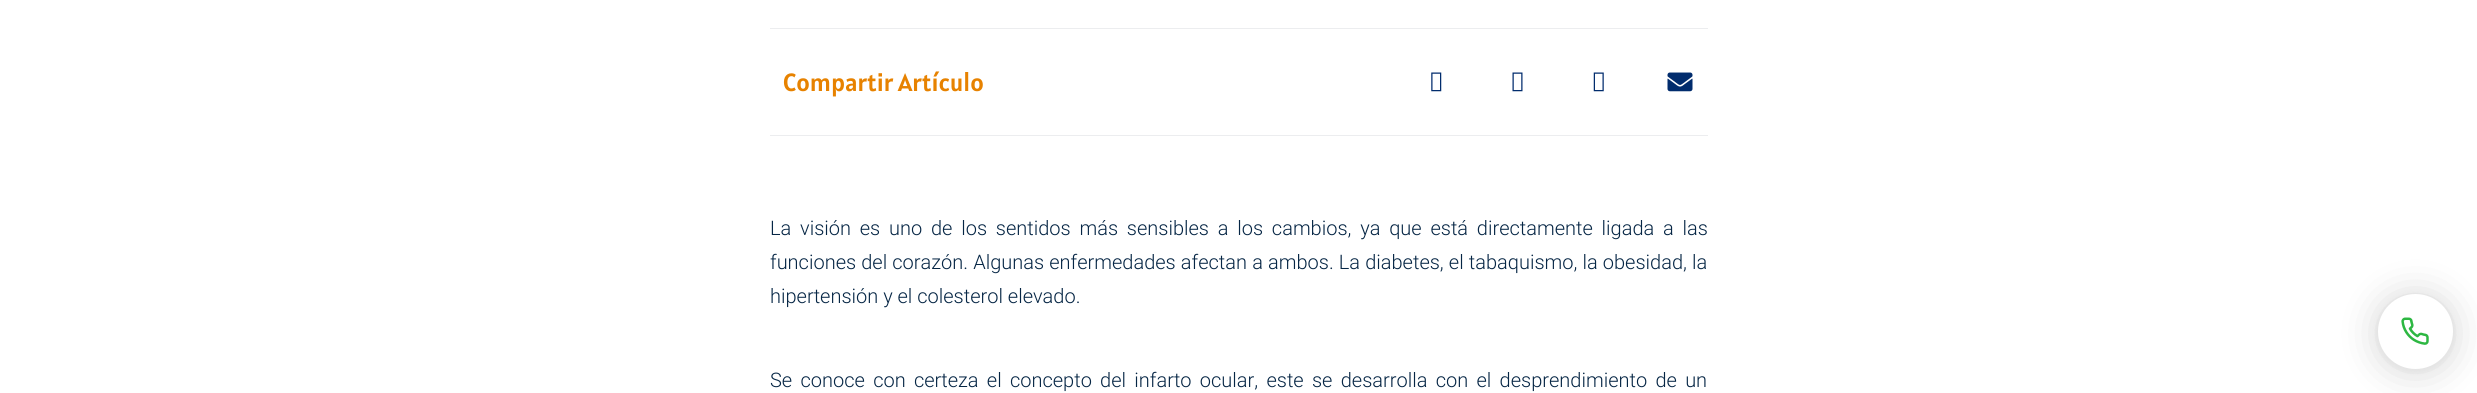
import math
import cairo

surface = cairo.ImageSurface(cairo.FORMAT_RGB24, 2477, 393)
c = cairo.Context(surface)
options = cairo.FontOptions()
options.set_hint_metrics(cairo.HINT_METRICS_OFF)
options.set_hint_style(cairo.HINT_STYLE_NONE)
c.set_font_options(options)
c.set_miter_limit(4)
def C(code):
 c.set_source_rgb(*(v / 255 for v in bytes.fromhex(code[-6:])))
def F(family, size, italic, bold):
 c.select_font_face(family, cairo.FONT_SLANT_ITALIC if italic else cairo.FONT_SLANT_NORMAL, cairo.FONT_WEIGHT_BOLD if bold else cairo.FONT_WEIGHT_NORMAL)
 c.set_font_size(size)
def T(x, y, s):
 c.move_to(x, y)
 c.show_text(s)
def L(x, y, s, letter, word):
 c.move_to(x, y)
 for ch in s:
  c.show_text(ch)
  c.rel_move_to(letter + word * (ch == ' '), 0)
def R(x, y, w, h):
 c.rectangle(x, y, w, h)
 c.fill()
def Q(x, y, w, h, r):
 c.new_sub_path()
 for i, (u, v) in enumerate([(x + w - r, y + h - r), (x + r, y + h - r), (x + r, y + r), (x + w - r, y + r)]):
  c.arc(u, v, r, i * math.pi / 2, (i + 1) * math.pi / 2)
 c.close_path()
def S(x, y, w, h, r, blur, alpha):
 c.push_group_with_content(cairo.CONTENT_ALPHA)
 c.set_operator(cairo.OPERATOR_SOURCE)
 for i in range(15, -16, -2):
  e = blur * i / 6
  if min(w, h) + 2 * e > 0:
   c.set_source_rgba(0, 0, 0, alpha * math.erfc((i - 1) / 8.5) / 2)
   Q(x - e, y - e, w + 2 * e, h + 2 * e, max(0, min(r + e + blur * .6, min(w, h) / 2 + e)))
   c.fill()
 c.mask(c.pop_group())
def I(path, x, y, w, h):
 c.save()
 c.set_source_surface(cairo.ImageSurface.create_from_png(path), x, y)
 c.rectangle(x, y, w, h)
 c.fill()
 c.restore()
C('ffffff')
c.paint()
C('ecedef')
R(770,28,938,1)
R(770,135,938,1)
F('Alatsi',25,0,0)
C('e78200')
T(783,91,'Compartir Artículo')
I('1.png',1431,72,11,20)
I('2.png',1512,72,11,20)
I('3.png',1593,72,11,20)
I('4.png',1667,72,26,20)
F('Roboto Light',20,0,0)
C('062645')
L(770,235,'La visión es uno de los sentidos más sensibles a los cambios, ya que está directamente ligada a las',0,3.9)
L(770,269,'funciones del corazón. Algunas enfermedades afectan a ambos. La diabetes, el tabaquismo, la obesidad, la',0,.25)
T(770,303,'hipertensión y el colesterol elevado.')
L(770,387,'Se conoce con certeza el concepto del infarto ocular, este se desarrolla con el desprendimiento de un',0,3.4)
C('000000')
S(2378,296,75,75,37.5,20,.16)
S(2378,295,75,75,37.5,4,.06)
C('ffffff')
c.arc(2415.5,331.5,37.5,0,2 * math.pi)
c.fill()
I('5.png',2401,317,28,28)
surface.write_to_png('o.png')
